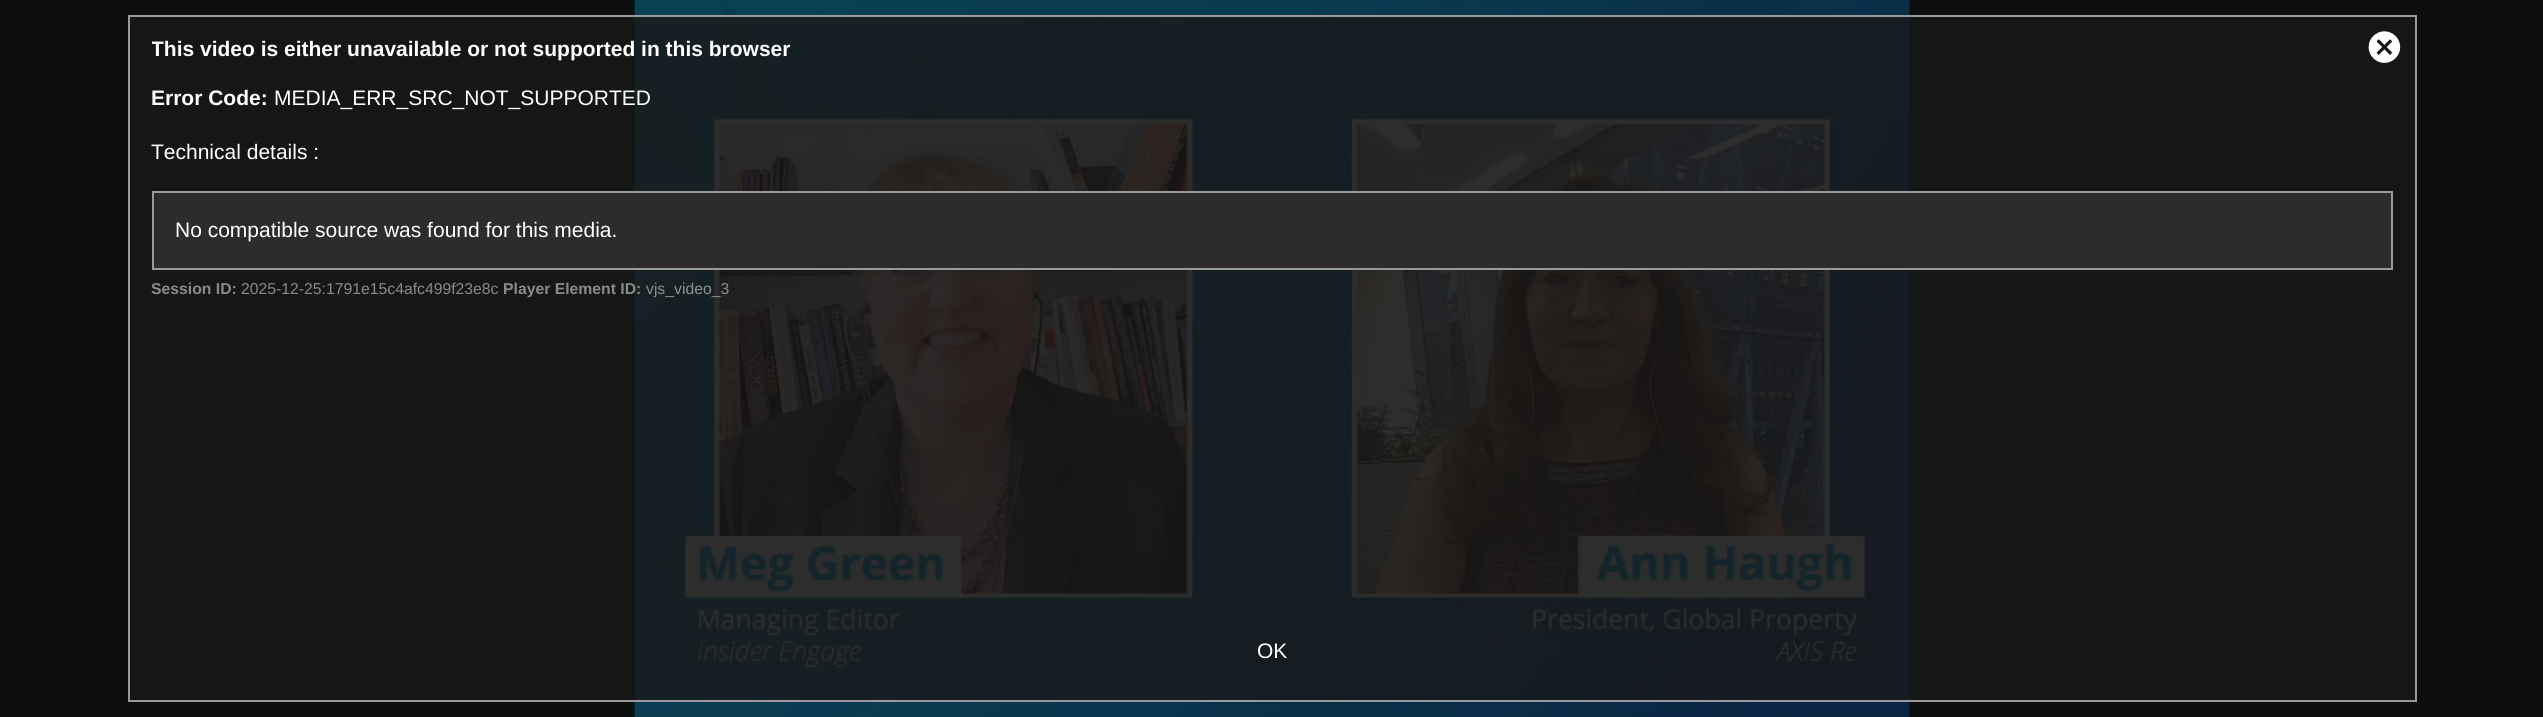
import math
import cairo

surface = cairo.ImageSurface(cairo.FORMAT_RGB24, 2543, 717)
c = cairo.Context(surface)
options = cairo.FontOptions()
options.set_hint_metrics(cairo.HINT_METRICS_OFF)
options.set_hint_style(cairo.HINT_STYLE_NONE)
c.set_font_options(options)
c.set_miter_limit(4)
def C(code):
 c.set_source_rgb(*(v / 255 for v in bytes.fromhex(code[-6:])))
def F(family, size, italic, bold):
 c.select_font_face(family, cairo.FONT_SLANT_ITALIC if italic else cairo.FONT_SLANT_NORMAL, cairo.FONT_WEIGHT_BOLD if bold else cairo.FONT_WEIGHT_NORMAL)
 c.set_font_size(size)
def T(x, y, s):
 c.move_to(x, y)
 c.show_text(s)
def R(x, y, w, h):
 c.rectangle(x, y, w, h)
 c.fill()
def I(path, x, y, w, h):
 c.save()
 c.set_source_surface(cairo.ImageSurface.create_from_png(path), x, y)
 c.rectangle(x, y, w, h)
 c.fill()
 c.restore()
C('0b0e0c')
c.paint()
C('151616')
R(130,17,2285,683)
I('1.png',634,0,1276,717)
c.rectangle(129,16,2287,685)
C('999999')
c.stroke()
c.save()
c.rectangle(152,17,2241,592)
c.clip()
F('Liberation Sans',21,0,1)
C('ffffff')
T(151,56,'This video is either unavailable or not supported in this browser')
c.restore()
F('Liberation Sans',21,0,1)
C('ffffff')
T(151,105,'Error Code:')
F('Liberation Sans',21,0,0)
T(274,105,'MEDIA_ERR_SRC_NOT_SUPPORTED')
T(151,159,'Technical details :')
C('2c2c2c')
c.rectangle(153,192,2239,77)
c.fill_preserve()
C('999999')
c.stroke()
C('ffffff')
T(175,237,'No compatible source was found for this media.')
F('Liberation Sans',15.75,0,1)
C('8a8a8a')
T(151,294,'Session ID:')
F('Liberation Sans',15.75,0,0)
T(241,294,'2025-12-25:1791e15c4afc499f23e8c')
F('Liberation Sans',15.75,0,1)
T(503,294,'Player Element ID:')
F('Liberation Sans',15.75,0,0)
C('8b9091')
T(646,294,'vjs_video_3')
I('2.png',2368,31,33,32)
F('Liberation Sans',21,0,0)
C('ffffff')
T(1257,658,'OK')
surface.write_to_png('o.png')
